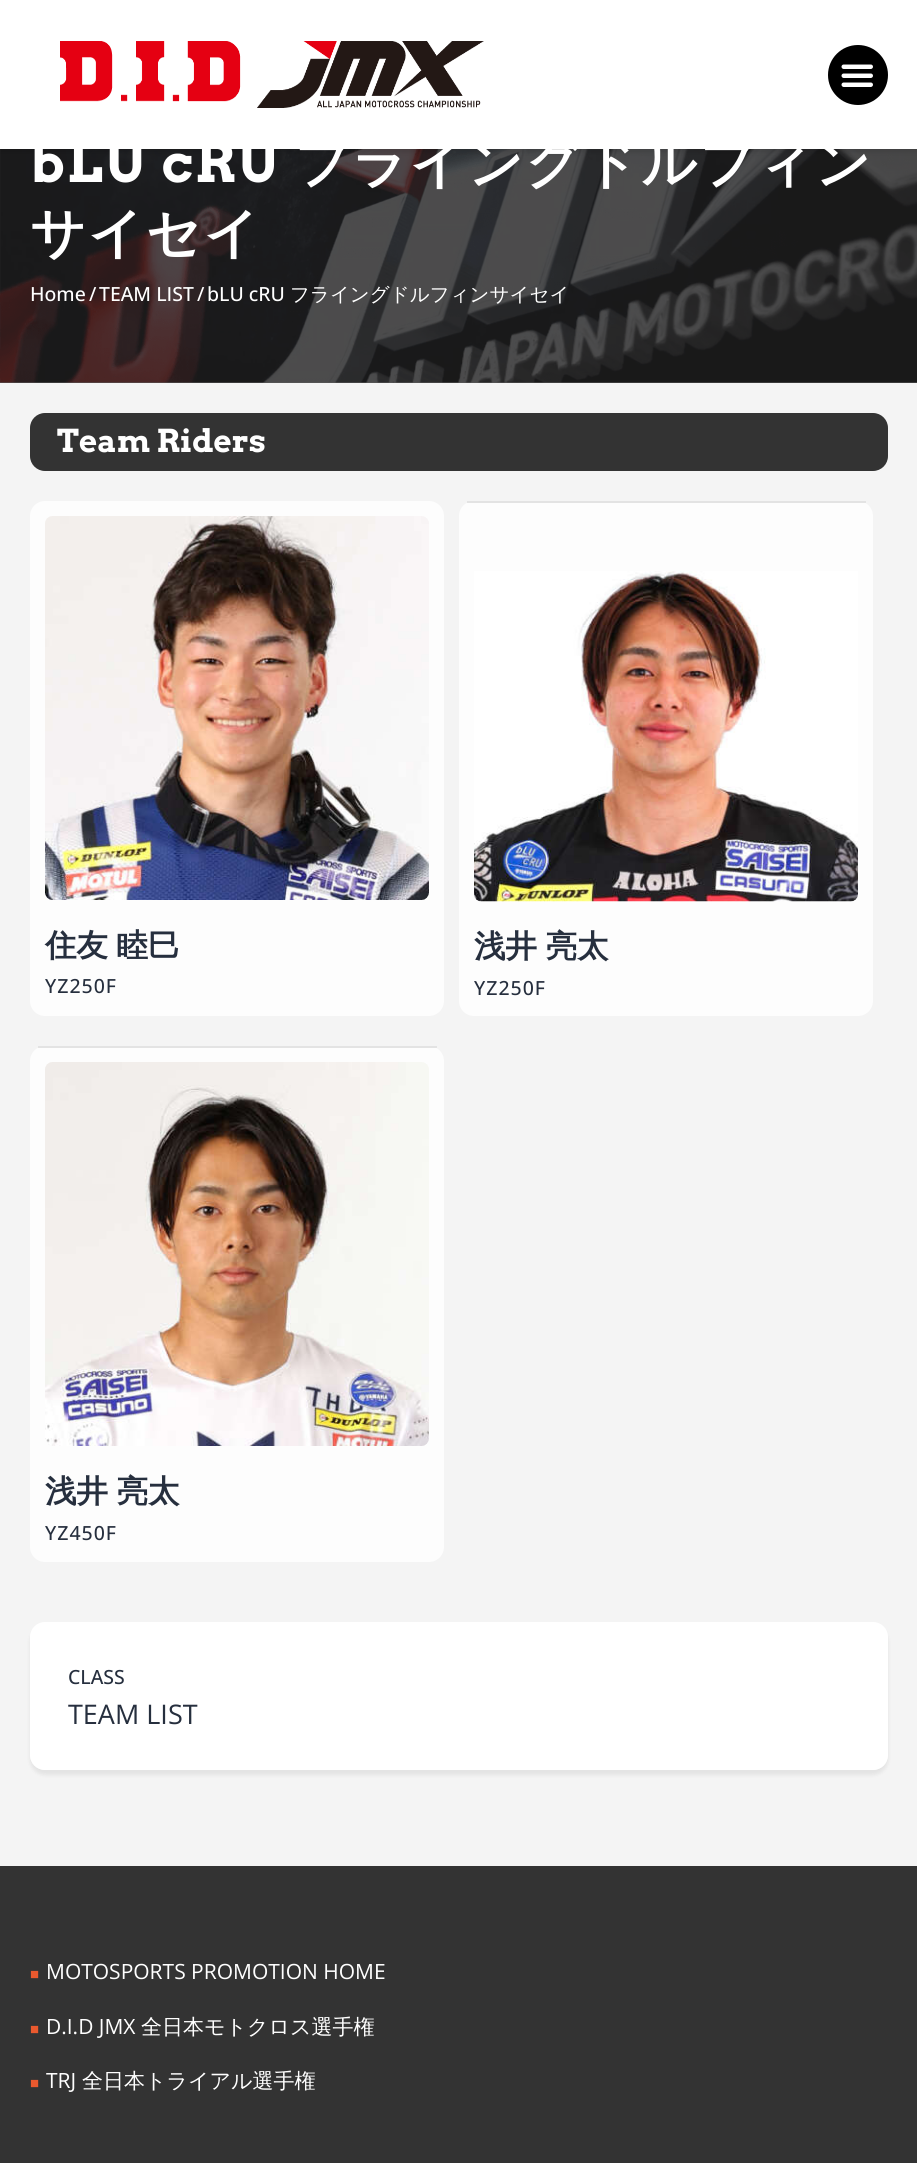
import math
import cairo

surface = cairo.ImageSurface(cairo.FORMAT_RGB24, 917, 2163)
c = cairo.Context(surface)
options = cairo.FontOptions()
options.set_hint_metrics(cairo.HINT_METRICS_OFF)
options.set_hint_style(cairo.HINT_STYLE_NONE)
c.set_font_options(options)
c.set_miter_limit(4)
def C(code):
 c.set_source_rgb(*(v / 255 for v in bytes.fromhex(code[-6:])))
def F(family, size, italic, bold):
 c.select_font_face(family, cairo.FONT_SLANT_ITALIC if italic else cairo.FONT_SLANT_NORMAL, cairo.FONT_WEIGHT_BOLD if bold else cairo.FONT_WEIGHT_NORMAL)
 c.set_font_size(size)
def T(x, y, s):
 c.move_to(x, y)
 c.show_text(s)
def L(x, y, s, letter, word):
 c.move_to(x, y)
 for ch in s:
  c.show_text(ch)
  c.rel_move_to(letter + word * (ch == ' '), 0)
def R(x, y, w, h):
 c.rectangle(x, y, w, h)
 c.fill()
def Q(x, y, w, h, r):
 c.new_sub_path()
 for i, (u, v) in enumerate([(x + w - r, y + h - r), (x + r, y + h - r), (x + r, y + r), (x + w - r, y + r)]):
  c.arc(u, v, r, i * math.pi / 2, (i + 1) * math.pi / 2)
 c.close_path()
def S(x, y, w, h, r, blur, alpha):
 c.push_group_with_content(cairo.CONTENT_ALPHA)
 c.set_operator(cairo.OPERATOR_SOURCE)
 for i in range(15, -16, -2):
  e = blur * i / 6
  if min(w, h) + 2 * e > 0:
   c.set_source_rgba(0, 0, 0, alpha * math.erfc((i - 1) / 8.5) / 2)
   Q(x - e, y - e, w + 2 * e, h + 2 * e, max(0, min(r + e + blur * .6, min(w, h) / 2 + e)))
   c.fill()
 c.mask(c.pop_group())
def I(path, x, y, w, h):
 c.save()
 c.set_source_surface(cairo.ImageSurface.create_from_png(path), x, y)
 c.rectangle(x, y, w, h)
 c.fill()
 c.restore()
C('f4f4f4')
c.paint()
C('5c5c5c')
R(0,149,917,234)
I('1.png',0,149,917,234)
C('000000')
S(0,5,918,148,0,2,.08)
C('ffffff')
R(0,0,917,149)
I('2.png',60,41,424,67)
C('000000')
c.arc(858,75,30,0,2 * math.pi)
c.fill()
I('3.png',841,64,32,23)
F('Arvo',54.6,0,1)
C('ffffff')
L(30,182,'bLU cRU',2,0)
F('WenQuanYi Zen Hei',54.6,0,1)
L(294,182,'フライングドルフィン',2,0)
L(30,252,'サイセイ',2,0)
F('Open Sans Medium',19.5,0,0)
T(30,301,'Home')
T(89,301,'/')
T(99,301,'TEAM LIST')
T(197,301,'/')
T(207,301,'bLU cRU')
F('WenQuanYi Zen Hei Medium',19.5,0,0)
T(290,301,'フライングドルフィンサイセイ')
C('333333')
Q(30,413,858,58,15)
c.fill()
F('Arvo',31.5,0,1)
C('ffffff')
T(57,452,'Team Riders')
C('fdfdfd')
Q(30,501,414,515,15)
c.fill()
I('4.png',45,516,384,384)
F('WenQuanYi Zen Hei',31.5,0,1)
C('262f3e')
L(45,956,'住友 睦巳',0,-1)
F('Open Sans Medium',19.5,0,0)
L(45,993,'YZ250F',1,0)
C('fdfdfd')
Q(459,501,414,515,15)
c.fill()
C('e3e3e3')
R(467,501,399,2)
I('5.png',474,571,384,331)
F('WenQuanYi Zen Hei',31.5,0,1)
C('262f3e')
L(474,957,'浅井 亮太',0,-1)
F('Open Sans Medium',19.5,0,0)
L(474,995,'YZ250F',1,0)
C('fdfdfd')
Q(30,1046,414,516,15)
c.fill()
C('e3e3e3')
R(38,1046,399,2)
I('6.png',45,1062,384,384)
F('WenQuanYi Zen Hei',31.5,0,1)
C('262f3e')
L(45,1502,'浅井 亮太',0,-1)
F('Open Sans Medium',19.5,0,0)
L(45,1540,'YZ450F',1,0)
c.save()
c.set_fill_rule(cairo.FILL_RULE_EVEN_ODD)
c.new_path()
c.move_to(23,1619)
c.line_to(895,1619)
c.line_to(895,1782)
c.line_to(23,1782)
c.close_path()
c.move_to(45,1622)
c.line_to(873,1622)
c.curve_to(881.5,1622,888,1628.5,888,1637)
c.line_to(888,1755)
c.curve_to(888,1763.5,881.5,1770,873,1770)
c.line_to(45,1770)
c.curve_to(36.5,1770,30,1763.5,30,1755)
c.line_to(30,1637)
c.curve_to(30,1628.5,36.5,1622,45,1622)
c.close_path()
c.clip()
C('000000')
S(30,1626,858,149,15,2,.07)
c.restore()
C('ffffff')
Q(30,1622,858,148,15)
c.fill()
C('262f3e')
T(68,1684,'CLASS')
F('Open Sans',27,0,0)
T(68,1724,'TEAM LIST')
C('333333')
R(0,1866,917,297)
F('Liberation Sans',15,0,0)
C('ea592e')
T(30,1979,'■')
F('Open Sans',21,0,0)
C('ffffff')
T(46,1979,'MOTOSPORTS PROMOTION HOME')
F('Liberation Sans',15,0,0)
C('ea592e')
T(30,2034,'■')
F('Open Sans',21,0,0)
C('ffffff')
T(46,2034,'D.I.D JMX')
F('WenQuanYi Zen Hei Medium',21,0,0)
T(141,2034,'全日本モトクロス選手権')
F('Liberation Sans',15,0,0)
C('ea592e')
T(30,2088,'■')
F('Open Sans',21,0,0)
C('ffffff')
T(46,2088,'TRJ')
F('WenQuanYi Zen Hei Medium',21,0,0)
T(82,2088,'全日本トライアル選手権')
surface.write_to_png('o.png')
